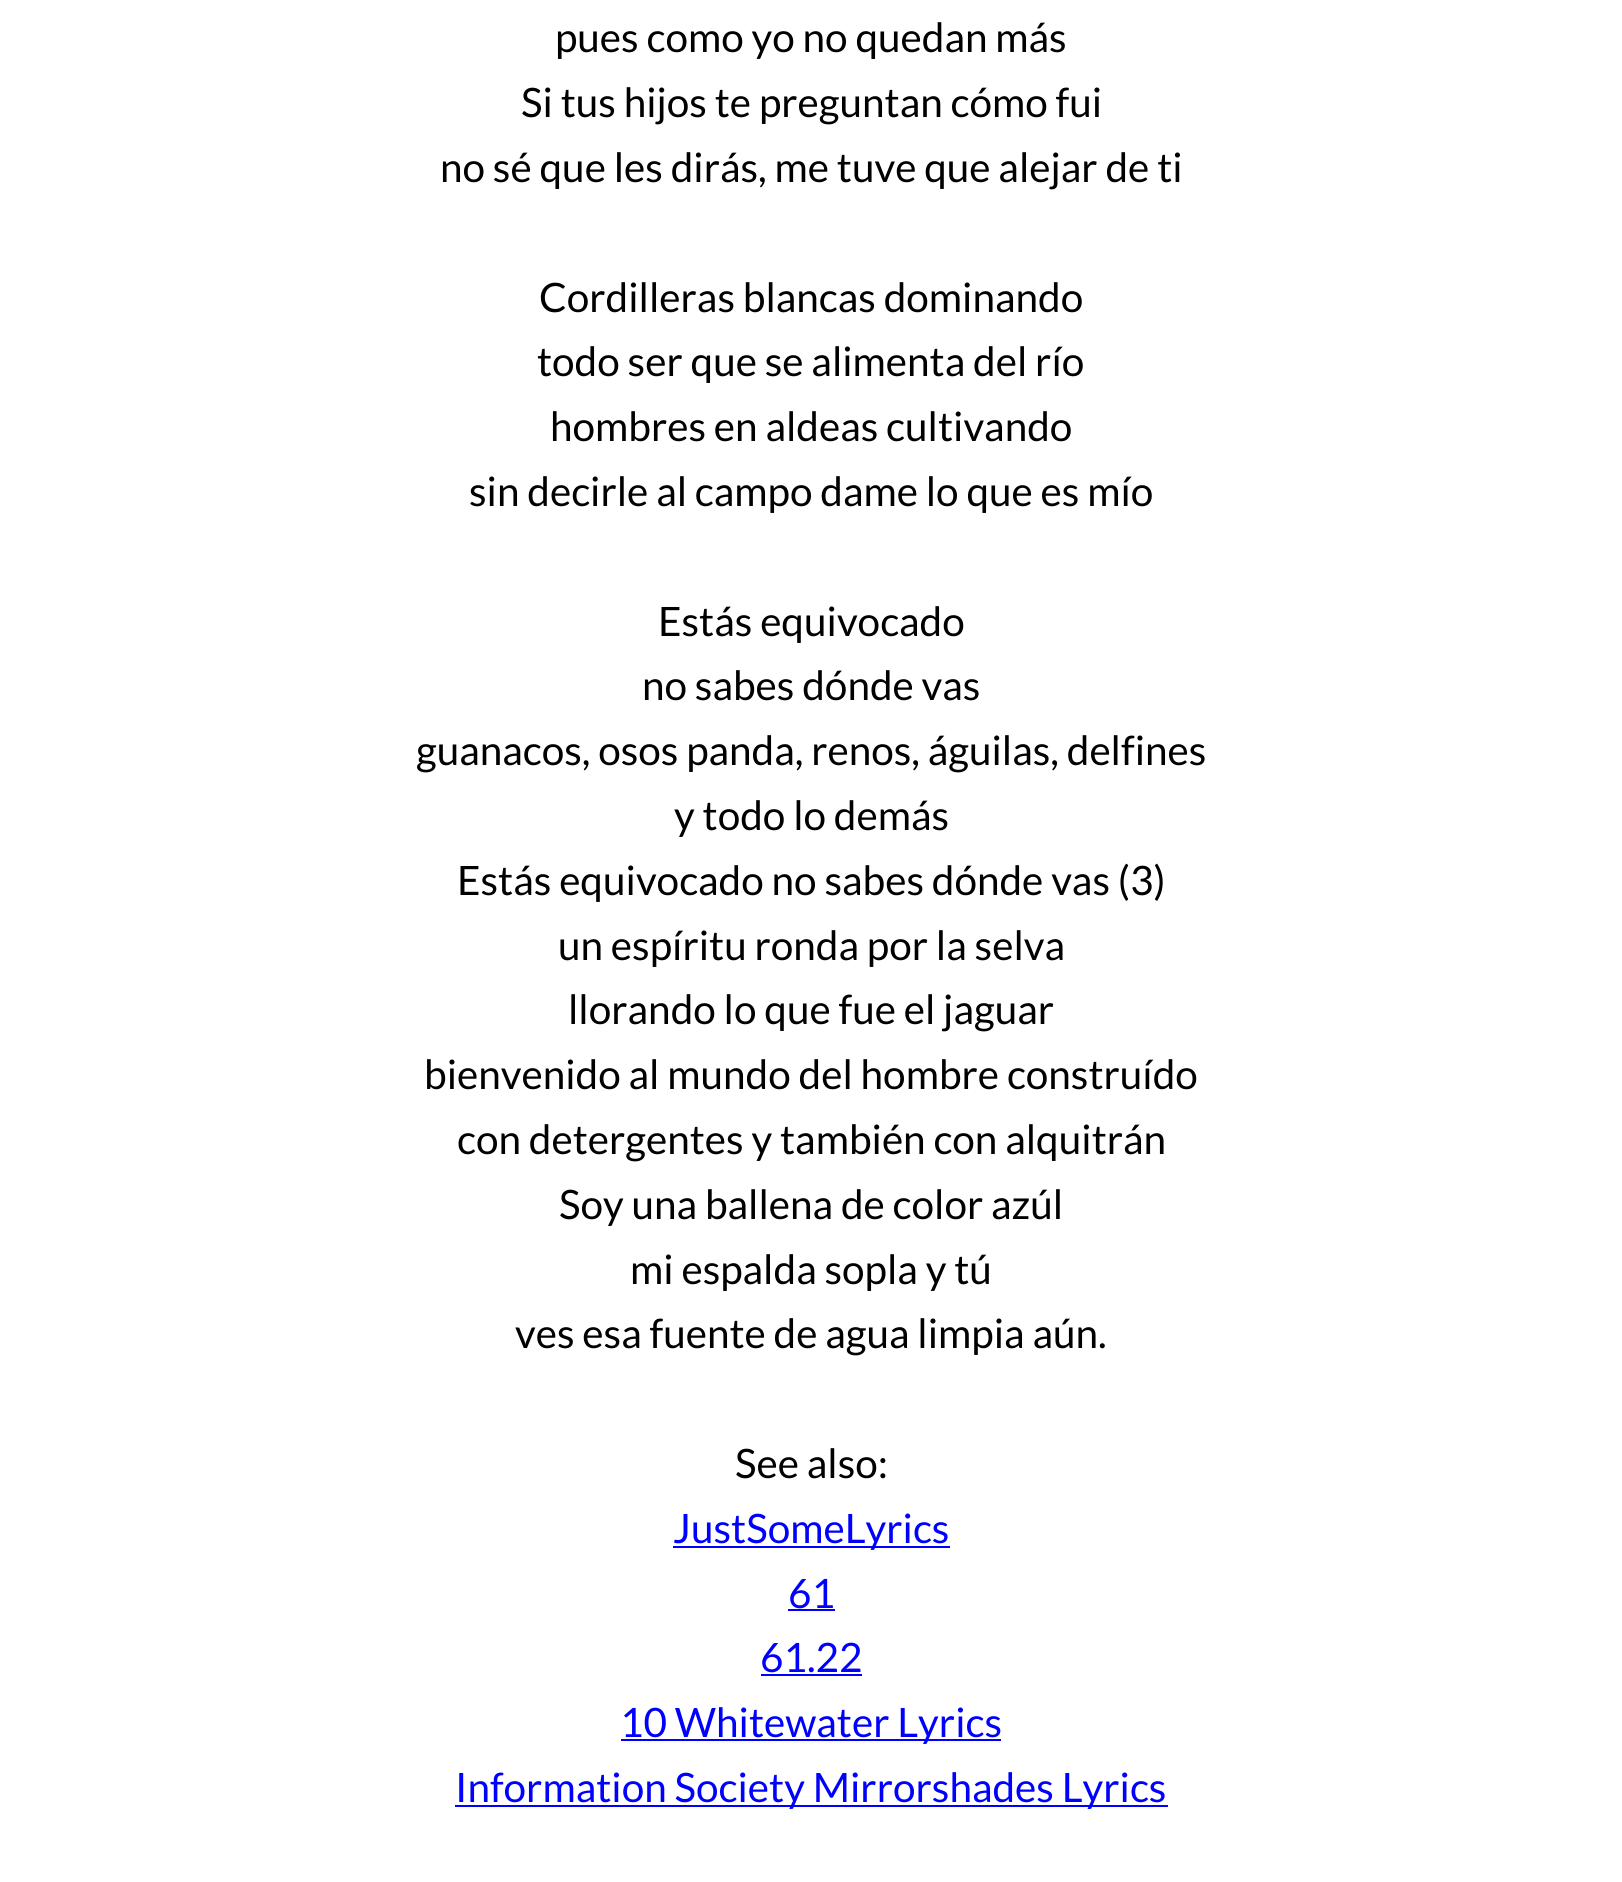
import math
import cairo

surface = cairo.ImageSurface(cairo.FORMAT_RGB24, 1622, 1882)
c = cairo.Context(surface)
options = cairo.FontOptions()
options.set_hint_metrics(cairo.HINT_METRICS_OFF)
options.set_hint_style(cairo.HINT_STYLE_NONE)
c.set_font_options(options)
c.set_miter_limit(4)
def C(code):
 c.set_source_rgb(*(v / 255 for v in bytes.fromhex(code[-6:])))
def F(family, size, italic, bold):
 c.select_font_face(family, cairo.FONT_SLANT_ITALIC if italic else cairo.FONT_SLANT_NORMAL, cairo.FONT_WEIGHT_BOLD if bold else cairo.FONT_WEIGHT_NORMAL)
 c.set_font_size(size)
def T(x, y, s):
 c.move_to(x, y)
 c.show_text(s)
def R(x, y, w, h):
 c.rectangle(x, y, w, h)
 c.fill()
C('ffffff')
c.paint()
F('Lato',40.5,0,0)
C('000000')
T(555,52,'pues como yo no quedan más')
T(521,117,'Si tus hijos te preguntan cómo fui')
T(440,182,'no sé que les dirás, me tuve que alejar de ti')
T(539,312,'Cordilleras blancas dominando')
T(537,376,'todo ser que se alimenta del río')
T(550,441,'hombres en aldeas cultivando')
T(469,506,'sin decirle al campo dame lo que es mío')
T(658,636,'Estás equivocado')
T(642,700,'no sabes dónde vas')
T(416,765,'guanacos, osos panda, renos, águilas, delfines')
T(674,830,'y todo lo demás')
T(457,895,'Estás equivocado no sabes dónde vas (3)')
T(558,960,'un espíritu ronda por la selva')
T(568,1024,'llorando lo que fue el jaguar')
T(424,1089,'bienvenido al mundo del hombre construído')
T(457,1154,'con detergentes y también con alquitrán')
T(559,1219,'Soy una ballena de color azúl')
T(630,1284,'mi espalda sopla y tú')
T(515,1348,'ves esa fuente de agua limpia aún.')
T(735,1478,'See also:')
C('0000ff')
R(673,1546,277,2)
T(673,1543,'JustSomeLyrics')
T(788,1608,'61')
R(788,1609,47,2)
T(760,1672,'61.22')
R(761,1674,101,2)
R(621,1739,380,2)
T(620,1737,'10 Whitewater Lyrics')
R(455,1805,713,2)
T(455,1802,'Information Society Mirrorshades Lyrics')
surface.write_to_png('o.png')
